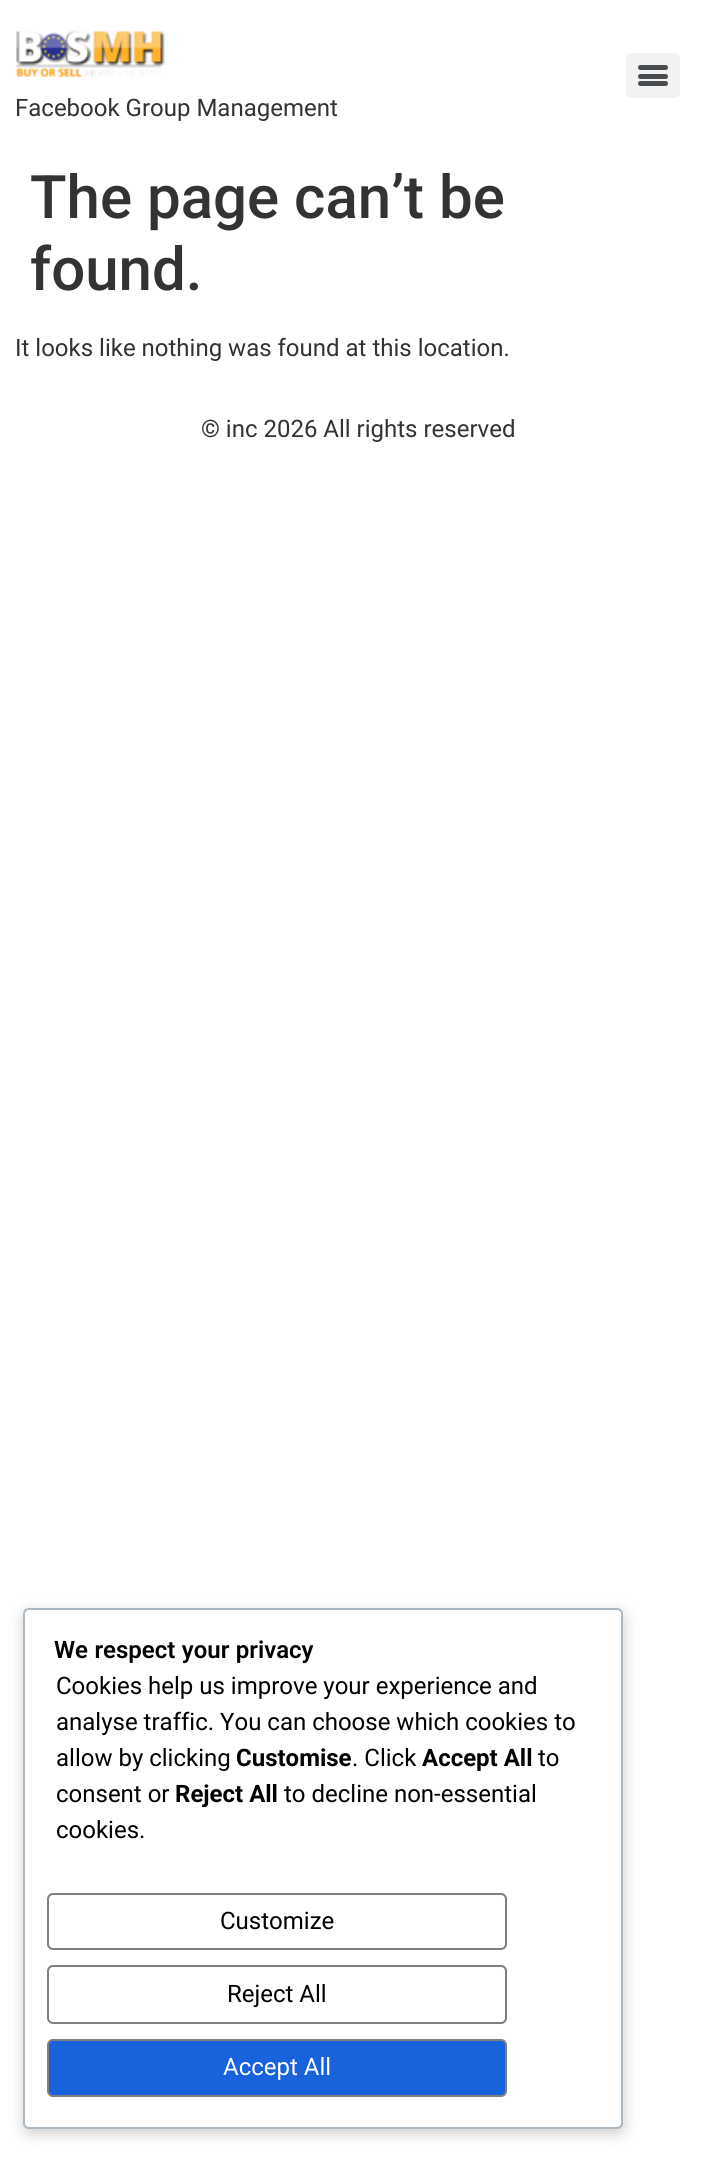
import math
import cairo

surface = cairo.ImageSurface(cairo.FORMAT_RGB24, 717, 2180)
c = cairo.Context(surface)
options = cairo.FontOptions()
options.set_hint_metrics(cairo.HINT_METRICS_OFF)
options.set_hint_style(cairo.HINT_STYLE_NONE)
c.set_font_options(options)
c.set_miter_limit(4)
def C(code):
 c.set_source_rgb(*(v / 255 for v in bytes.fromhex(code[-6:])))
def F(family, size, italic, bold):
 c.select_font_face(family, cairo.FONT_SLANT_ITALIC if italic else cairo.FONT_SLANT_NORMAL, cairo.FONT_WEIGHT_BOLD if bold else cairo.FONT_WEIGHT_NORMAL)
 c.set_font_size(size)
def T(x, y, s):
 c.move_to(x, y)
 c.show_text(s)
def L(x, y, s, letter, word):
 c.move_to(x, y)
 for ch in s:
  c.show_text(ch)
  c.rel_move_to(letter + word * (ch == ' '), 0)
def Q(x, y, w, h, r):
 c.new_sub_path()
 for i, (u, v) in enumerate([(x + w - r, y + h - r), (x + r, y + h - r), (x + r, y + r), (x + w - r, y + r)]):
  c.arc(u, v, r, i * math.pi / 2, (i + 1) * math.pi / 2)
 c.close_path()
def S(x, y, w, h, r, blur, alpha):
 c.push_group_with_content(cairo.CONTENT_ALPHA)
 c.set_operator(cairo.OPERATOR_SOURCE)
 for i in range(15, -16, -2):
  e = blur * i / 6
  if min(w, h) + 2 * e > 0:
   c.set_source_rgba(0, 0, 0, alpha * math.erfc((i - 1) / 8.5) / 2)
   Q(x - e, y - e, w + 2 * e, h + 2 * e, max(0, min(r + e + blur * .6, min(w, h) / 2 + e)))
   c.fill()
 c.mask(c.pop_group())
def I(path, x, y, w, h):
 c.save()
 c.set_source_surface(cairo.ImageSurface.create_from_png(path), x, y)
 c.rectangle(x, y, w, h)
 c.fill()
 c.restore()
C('ffffff')
c.paint()
C('f2f2f2')
Q(626,53,54,45,5)
c.fill()
C('494c4f')
Q(638,74,30,5,2.5)
c.fill()
Q(638,65,30,5,2.5)
c.fill()
Q(638,81,30,5,2.5)
c.fill()
I('1.png',16,30,149,48)
F('Roboto',24,0,0)
C('333333')
T(15,116,'Facebook Group Management')
F('Roboto Medium',60,0,0)
T(30,218,'The page can’t be')
T(30,290,'found.')
F('Roboto',24,0,0)
T(15,356,'It looks like nothing was found at this location.')
T(201,437,'© inc 2026 All rights reserved')
C('000000')
S(24,1613,600,520,6,7.5,.2)
C('ffffff')
Q(24,1609,598,519,5)
c.fill_preserve()
C('abb8c3')
c.stroke()
F('Roboto SemiBold',24,0,0)
C('000000')
L(54,1658,'We respect your privacy',0,.5)
F('Roboto',24,0,0)
T(56,1694,'Cookies help us improve your experience and')
T(56,1730,'analyse traffic. You can choose which cookies to')
T(56,1766,'allow by clicking')
F('Roboto',24,0,1)
T(236,1766,'Customise')
F('Roboto',24,0,0)
T(352,1766,'. Click')
F('Roboto',24,0,1)
T(422,1766,'Accept All')
F('Roboto',24,0,0)
T(538,1766,'to')
T(56,1802,'consent or')
F('Roboto',24,0,1)
T(175,1802,'Reject All')
F('Roboto',24,0,0)
T(284,1802,'to decline non-essential')
T(56,1838,'cookies.')
Q(48,1894,458,55,5)
C('808080')
c.stroke()
C('000000')
T(220,1929,'Customize')
Q(48,1966,458,57,5)
C('808080')
c.stroke()
C('000000')
T(227,2002,'Reject All')
C('1863dc')
Q(48,2040,458,56,5)
c.fill_preserve()
C('808080')
c.stroke()
C('ffffff')
T(223,2075,'Accept All')
surface.write_to_png('o.png')
